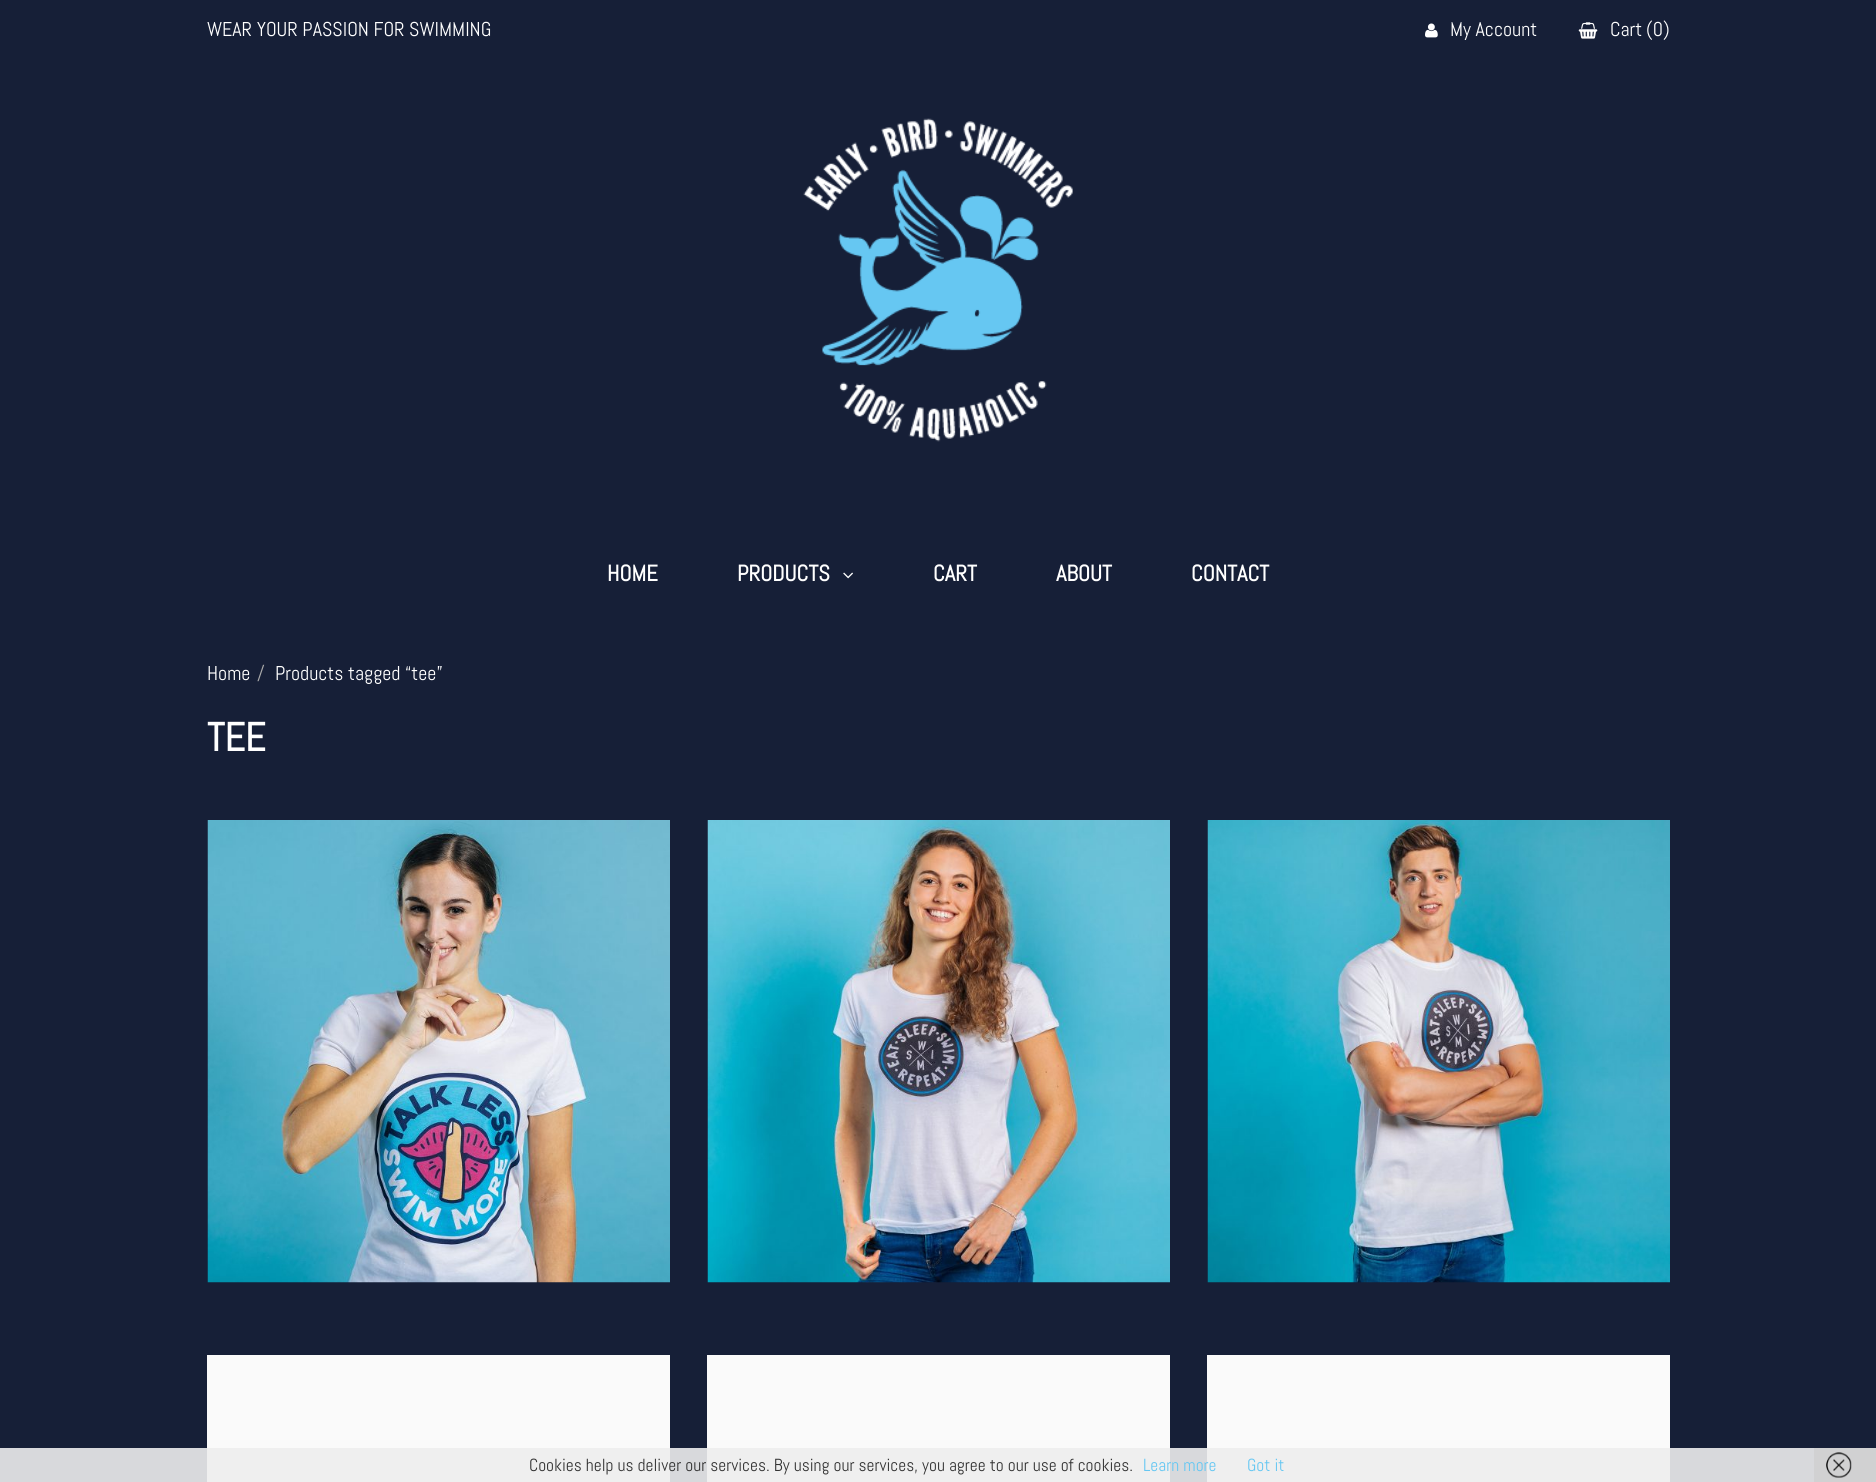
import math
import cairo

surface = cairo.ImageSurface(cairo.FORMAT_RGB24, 1876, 1482)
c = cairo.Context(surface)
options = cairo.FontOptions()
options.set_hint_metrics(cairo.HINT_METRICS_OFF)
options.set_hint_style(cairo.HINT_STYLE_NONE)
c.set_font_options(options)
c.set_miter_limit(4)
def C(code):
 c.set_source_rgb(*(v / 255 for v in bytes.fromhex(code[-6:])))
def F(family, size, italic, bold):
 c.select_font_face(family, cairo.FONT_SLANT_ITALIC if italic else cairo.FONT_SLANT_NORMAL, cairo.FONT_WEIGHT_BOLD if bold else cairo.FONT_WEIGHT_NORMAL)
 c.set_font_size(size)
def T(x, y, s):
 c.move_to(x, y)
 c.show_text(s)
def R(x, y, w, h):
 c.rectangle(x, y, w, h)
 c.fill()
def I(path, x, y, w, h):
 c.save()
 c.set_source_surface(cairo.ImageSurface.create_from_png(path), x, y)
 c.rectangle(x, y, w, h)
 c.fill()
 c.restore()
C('161f37')
c.paint()
C('d8d9dc')
R(0,1448,1814,34)
F('Abel',20,0,0)
C('ffffff')
T(207,36,'WEAR YOUR PASSION FOR SWIMMING')
I('1.png',1425,23,13,15)
T(1450,36,'My Account')
I('2.png',1578,22,20,17)
T(1610,36,'Cart')
T(1646,36,'(0)')
I('3.png',803,118,270,324)
F('Abel',22.5,0,1)
T(607,581,'HOME')
T(737,581,'PRODUCTS')
I('4.png',843,572,10,7)
T(933,581,'CART')
T(1056,581,'ABOUT')
T(1191,581,'CONTACT')
F('Abel',20,0,0)
T(207,680,'Home')
C('aaaaaa')
T(257,680,'/')
C('ffffff')
T(275,680,'Products tagged “tee”')
F('Abel',40,0,1)
T(207,751,'TEE')
I('5.png',207,820,463,463)
I('6.png',707,820,463,463)
I('7.png',1207,820,463,463)
C('fafafa')
R(207,1355,463,93)
C('efefef')
R(207,1448,463,34)
C('fafafa')
R(707,1355,463,93)
C('efefef')
R(707,1448,463,34)
C('fafafa')
R(1207,1355,463,93)
C('efefef')
R(1207,1448,463,34)
F('Abel',17.5,0,0)
C('333333')
T(529,1471,'Cookies help us deliver our services. By using our services, you agree to our use of cookies.')
C('66c7f2')
T(1143,1471,'Learn more')
T(1247,1471,'Got it')
C('d1d1d2')
R(1814,1448,62,34)
I('8.png',1826,1452,26,26)
surface.write_to_png('o.png')
